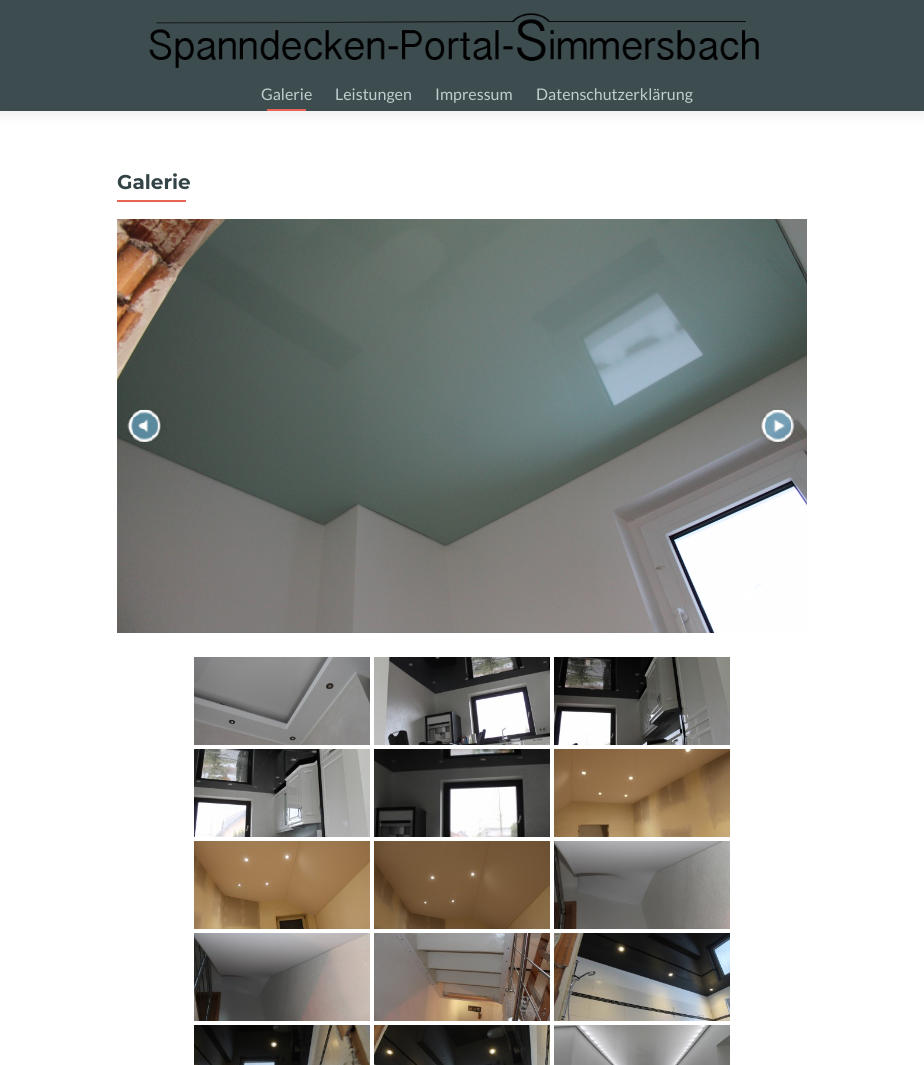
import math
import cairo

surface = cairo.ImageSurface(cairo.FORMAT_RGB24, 924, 1065)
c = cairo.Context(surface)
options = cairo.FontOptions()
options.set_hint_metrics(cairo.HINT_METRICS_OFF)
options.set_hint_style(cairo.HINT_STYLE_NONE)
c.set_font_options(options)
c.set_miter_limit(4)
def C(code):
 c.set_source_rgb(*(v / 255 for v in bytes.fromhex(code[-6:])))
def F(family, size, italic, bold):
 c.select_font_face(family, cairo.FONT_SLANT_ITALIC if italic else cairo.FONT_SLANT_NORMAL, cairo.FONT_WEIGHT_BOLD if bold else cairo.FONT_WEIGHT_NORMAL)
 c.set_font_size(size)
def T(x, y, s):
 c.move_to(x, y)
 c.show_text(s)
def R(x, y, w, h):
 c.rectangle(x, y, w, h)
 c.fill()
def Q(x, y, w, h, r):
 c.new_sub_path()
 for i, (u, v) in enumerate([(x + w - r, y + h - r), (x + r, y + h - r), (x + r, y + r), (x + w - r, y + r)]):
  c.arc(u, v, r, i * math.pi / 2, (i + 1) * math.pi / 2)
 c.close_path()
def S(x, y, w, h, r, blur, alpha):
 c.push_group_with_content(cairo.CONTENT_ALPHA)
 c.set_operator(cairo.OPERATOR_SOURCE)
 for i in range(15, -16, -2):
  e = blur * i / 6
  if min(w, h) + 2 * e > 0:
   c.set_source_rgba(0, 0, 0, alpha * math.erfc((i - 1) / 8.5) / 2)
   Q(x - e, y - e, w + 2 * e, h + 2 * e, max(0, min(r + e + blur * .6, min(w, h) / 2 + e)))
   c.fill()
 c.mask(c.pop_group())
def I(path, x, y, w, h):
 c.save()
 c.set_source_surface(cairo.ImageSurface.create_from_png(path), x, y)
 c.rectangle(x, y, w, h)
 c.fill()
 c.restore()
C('ffffff')
c.paint()
C('323232')
S(0,5,924,111,0,5.5,.08)
C('3d4c4f')
R(0,0,924,111)
I('1.png',149,13,610,55)
F('Lato',16,0,0)
C('c0cdcf')
T(261,100,'Galerie')
C('e96656')
R(267,109,39,2)
C('c0cdcf')
T(335,100,'Leistungen')
T(435,100,'Impressum')
T(536,100,'Datenschutzerklärung')
F('Montserrat Thin',20,0,0)
C('334346')
T(117,189,'Galerie')
C('e96656')
R(117,200,69,2)
I('2.png',117,219,690,414)
I('3.png',127,409,40,34)
I('4.png',760,408,36,35)
I('5.png',194,657,176,88)
I('6.png',374,657,176,88)
I('7.png',554,657,176,88)
I('8.png',194,749,176,88)
I('9.png',374,749,176,88)
I('10.png',554,749,176,88)
I('11.png',194,841,176,88)
I('12.png',374,841,176,88)
I('13.png',554,841,176,88)
I('14.png',194,933,176,88)
I('15.png',374,933,176,88)
I('16.png',554,933,176,88)
I('17.png',194,1025,176,40)
I('18.png',374,1025,176,40)
I('19.png',554,1025,176,40)
surface.write_to_png('o.png')
